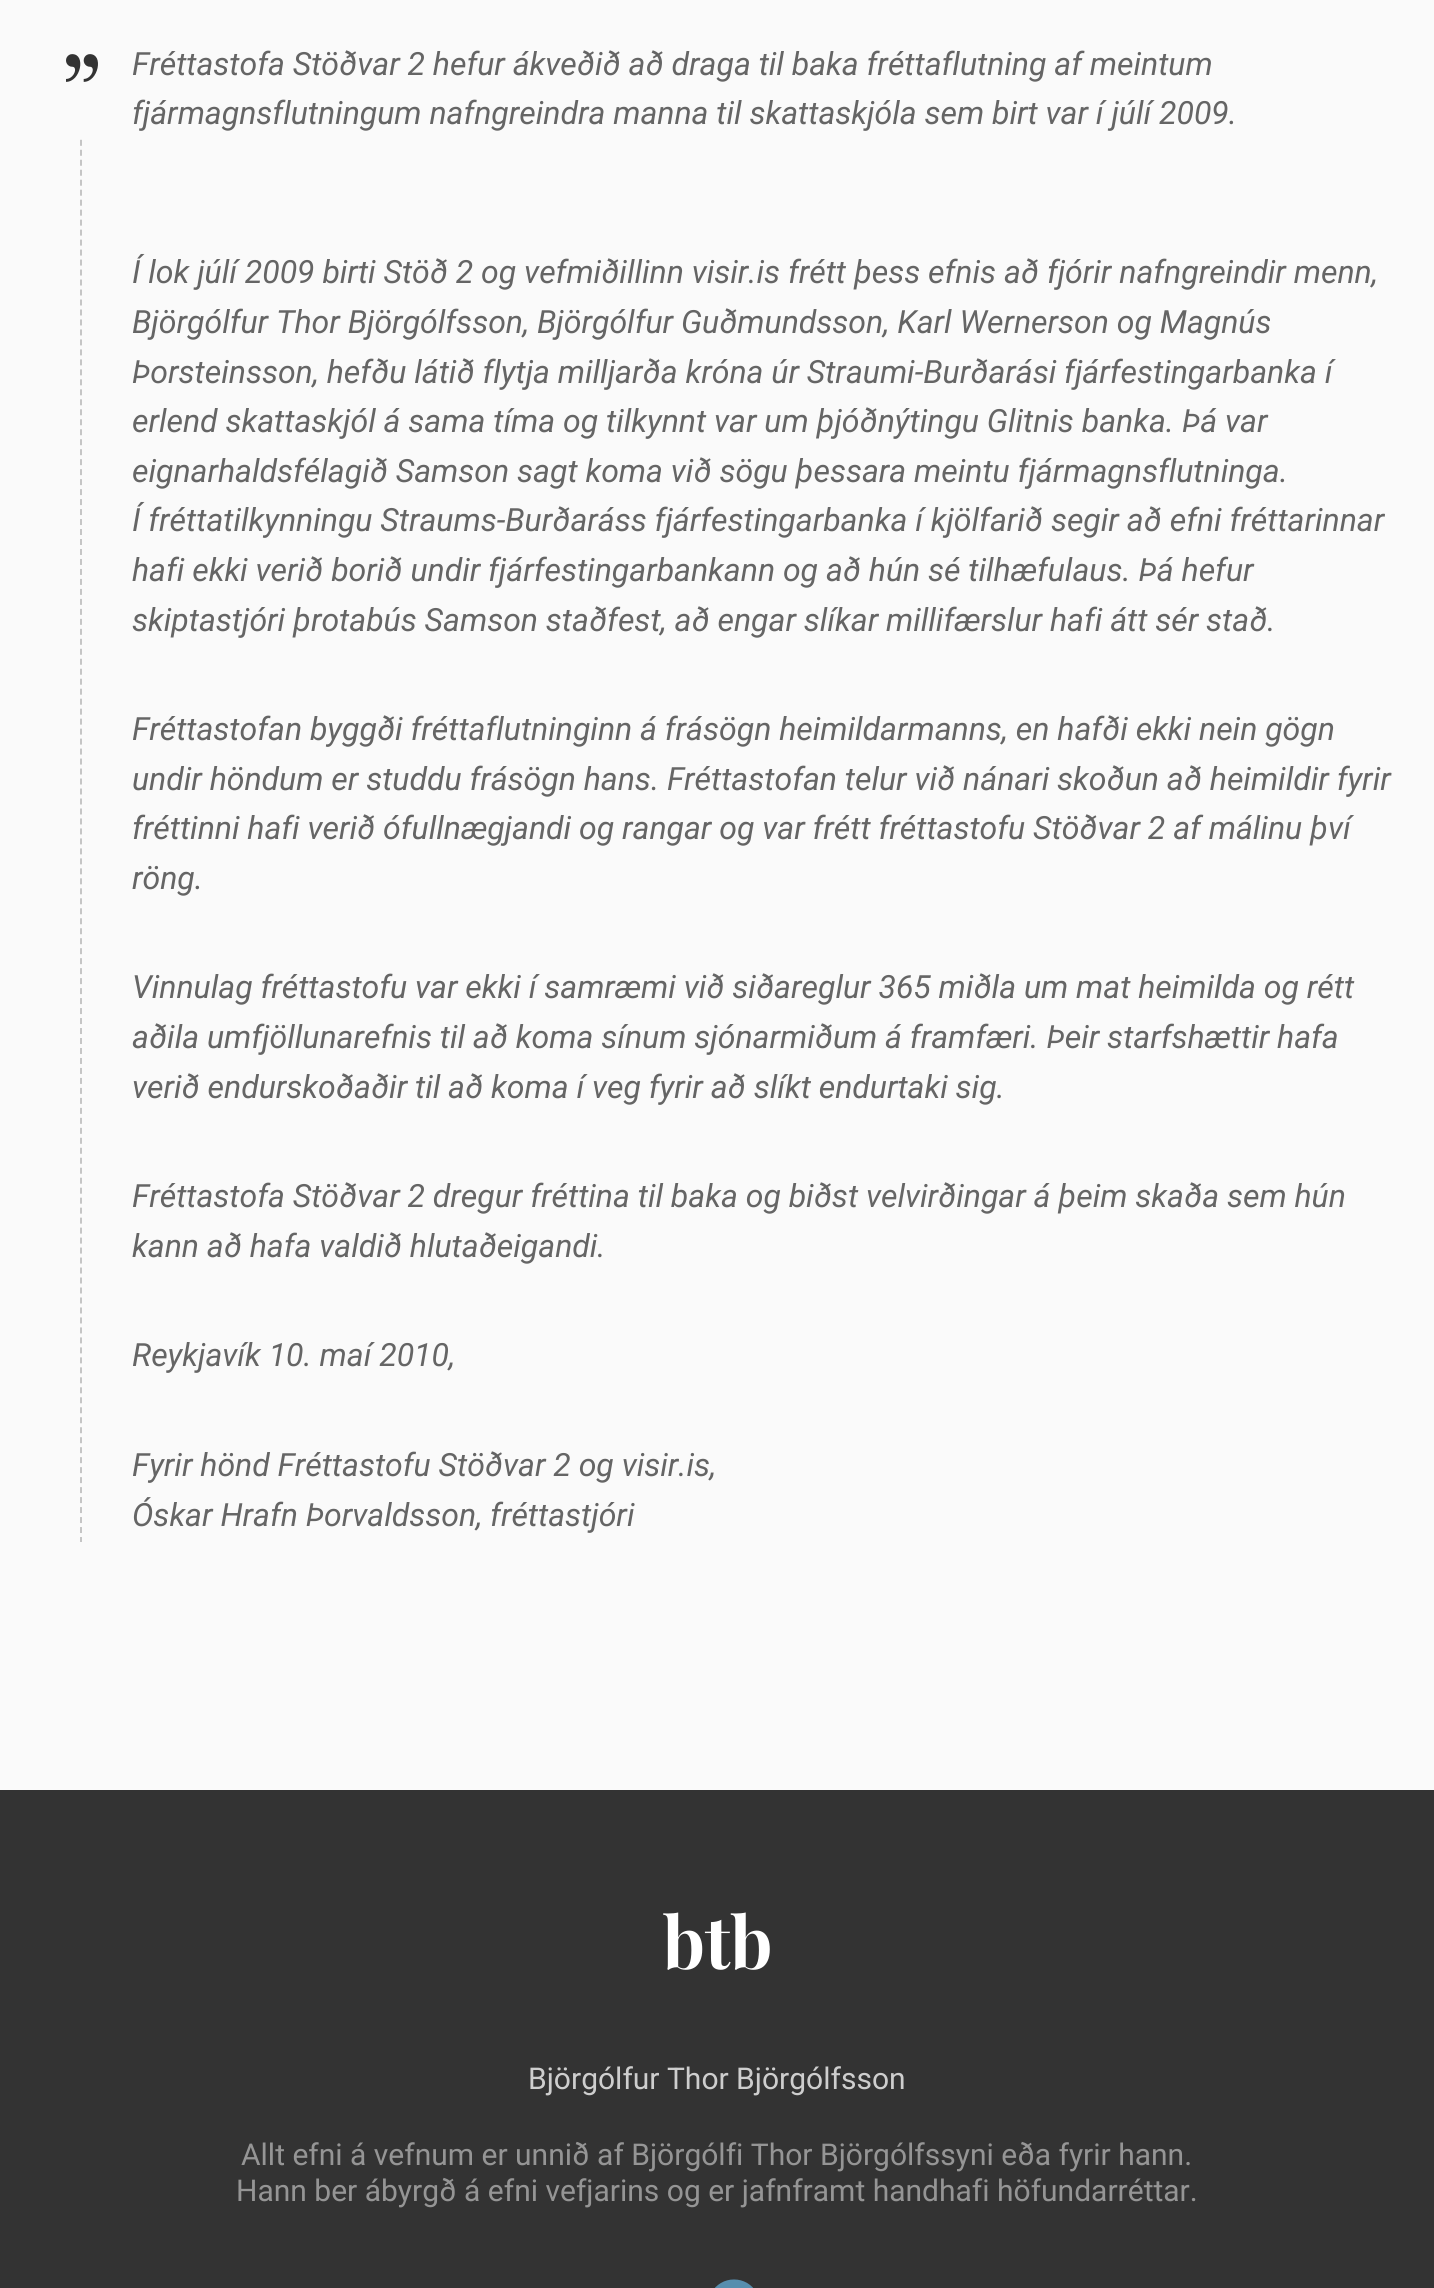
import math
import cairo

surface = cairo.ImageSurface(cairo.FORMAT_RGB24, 1434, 2288)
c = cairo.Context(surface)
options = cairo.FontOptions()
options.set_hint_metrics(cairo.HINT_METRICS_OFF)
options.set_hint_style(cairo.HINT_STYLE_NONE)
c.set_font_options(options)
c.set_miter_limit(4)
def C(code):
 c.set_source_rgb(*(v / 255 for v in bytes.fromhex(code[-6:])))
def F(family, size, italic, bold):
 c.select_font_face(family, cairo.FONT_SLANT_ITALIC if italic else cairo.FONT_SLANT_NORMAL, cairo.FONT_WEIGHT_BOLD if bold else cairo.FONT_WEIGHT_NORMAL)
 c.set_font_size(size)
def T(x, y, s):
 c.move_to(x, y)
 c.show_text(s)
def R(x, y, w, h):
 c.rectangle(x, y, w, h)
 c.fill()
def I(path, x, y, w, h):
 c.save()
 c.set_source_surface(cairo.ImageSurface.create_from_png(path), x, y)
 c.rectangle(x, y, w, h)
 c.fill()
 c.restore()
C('fafafa')
c.paint()
c.new_path()
c.move_to(81,40)
c.line_to(81,1542)
C('c5c5c5')
c.set_dash([6,3.98])
c.stroke()
C('fafafa')
R(80,40,2,96)
I('1.png',66,54,32,28)
F('Roboto',32,1,0)
C('656565')
T(132,75,'Fréttastofa Stöðvar 2 hefur ákveðið að draga til baka fréttaflutning af meintum')
T(132,124,'fjármagnsflutningum nafngreindra manna til skattaskjóla sem birt var í júlí 2009.')
T(132,283,'Í lok júlí 2009 birti Stöð 2 og vefmiðillinn visir.is frétt þess efnis að fjórir nafngreindir menn,')
T(132,333,'Björgólfur Thor Björgólfsson, Björgólfur Guðmundsson, Karl Wernerson og Magnús')
T(132,383,'Þorsteinsson, hefðu látið flytja milljarða króna úr Straumi-Burðarási fjárfestingarbanka í')
T(132,432,'erlend skattaskjól á sama tíma og tilkynnt var um þjóðnýtingu Glitnis banka. Þá var')
T(132,482,'eignarhaldsfélagið Samson sagt koma við sögu þessara meintu fjármagnsflutninga.')
T(132,531,'Í fréttatilkynningu Straums-Burðaráss fjárfestingarbanka í kjölfarið segir að efni fréttarinnar')
T(132,581,'hafi ekki verið borið undir fjárfestingarbankann og að hún sé tilhæfulaus. Þá hefur')
T(132,631,'skiptastjóri þrotabús Samson staðfest, að engar slíkar millifærslur hafi átt sér stað.')
T(132,740,'Fréttastofan byggði fréttaflutninginn á frásögn heimildarmanns, en hafði ekki nein gögn')
T(132,790,'undir höndum er studdu frásögn hans. Fréttastofan telur við nánari skoðun að heimildir fyrir')
T(132,839,'fréttinni hafi verið ófullnægjandi og rangar og var frétt fréttastofu Stöðvar 2 af málinu því')
T(132,889,'röng.')
T(132,998,'Vinnulag fréttastofu var ekki í samræmi við siðareglur 365 miðla um mat heimilda og rétt')
T(132,1048,'aðila umfjöllunarefnis til að koma sínum sjónarmiðum á framfæri. Þeir starfshættir hafa')
T(132,1098,'verið endurskoðaðir til að koma í veg fyrir að slíkt endurtaki sig.')
T(132,1207,'Fréttastofa Stöðvar 2 dregur fréttina til baka og biðst velvirðingar á þeim skaða sem hún')
T(132,1257,'kann að hafa valdið hlutaðeigandi.')
T(132,1366,'Reykjavík 10. maí 2010,')
T(132,1476,'Fyrir hönd Fréttastofu Stöðvar 2 og visir.is,')
T(132,1526,'Óskar Hrafn Þorvaldsson, fréttastjóri')
C('333333')
R(0,1790,1434,498)
I('2.png',663,1912,107,58)
F('Roboto',30,0,0)
C('cecece')
T(528,2089,'Björgólfur Thor Björgólfsson')
C('959595')
T(241,2165,'Allt efni á vefnum er unnið af Björgólfi Thor Björgólfssyni eða fyrir hann.')
T(236,2201,'Hann ber ábyrgð á efni vefjarins og er jafnframt handhafi höfundarréttar.')
I('3.png',715,2279,38,9)
surface.write_to_png('o.png')
